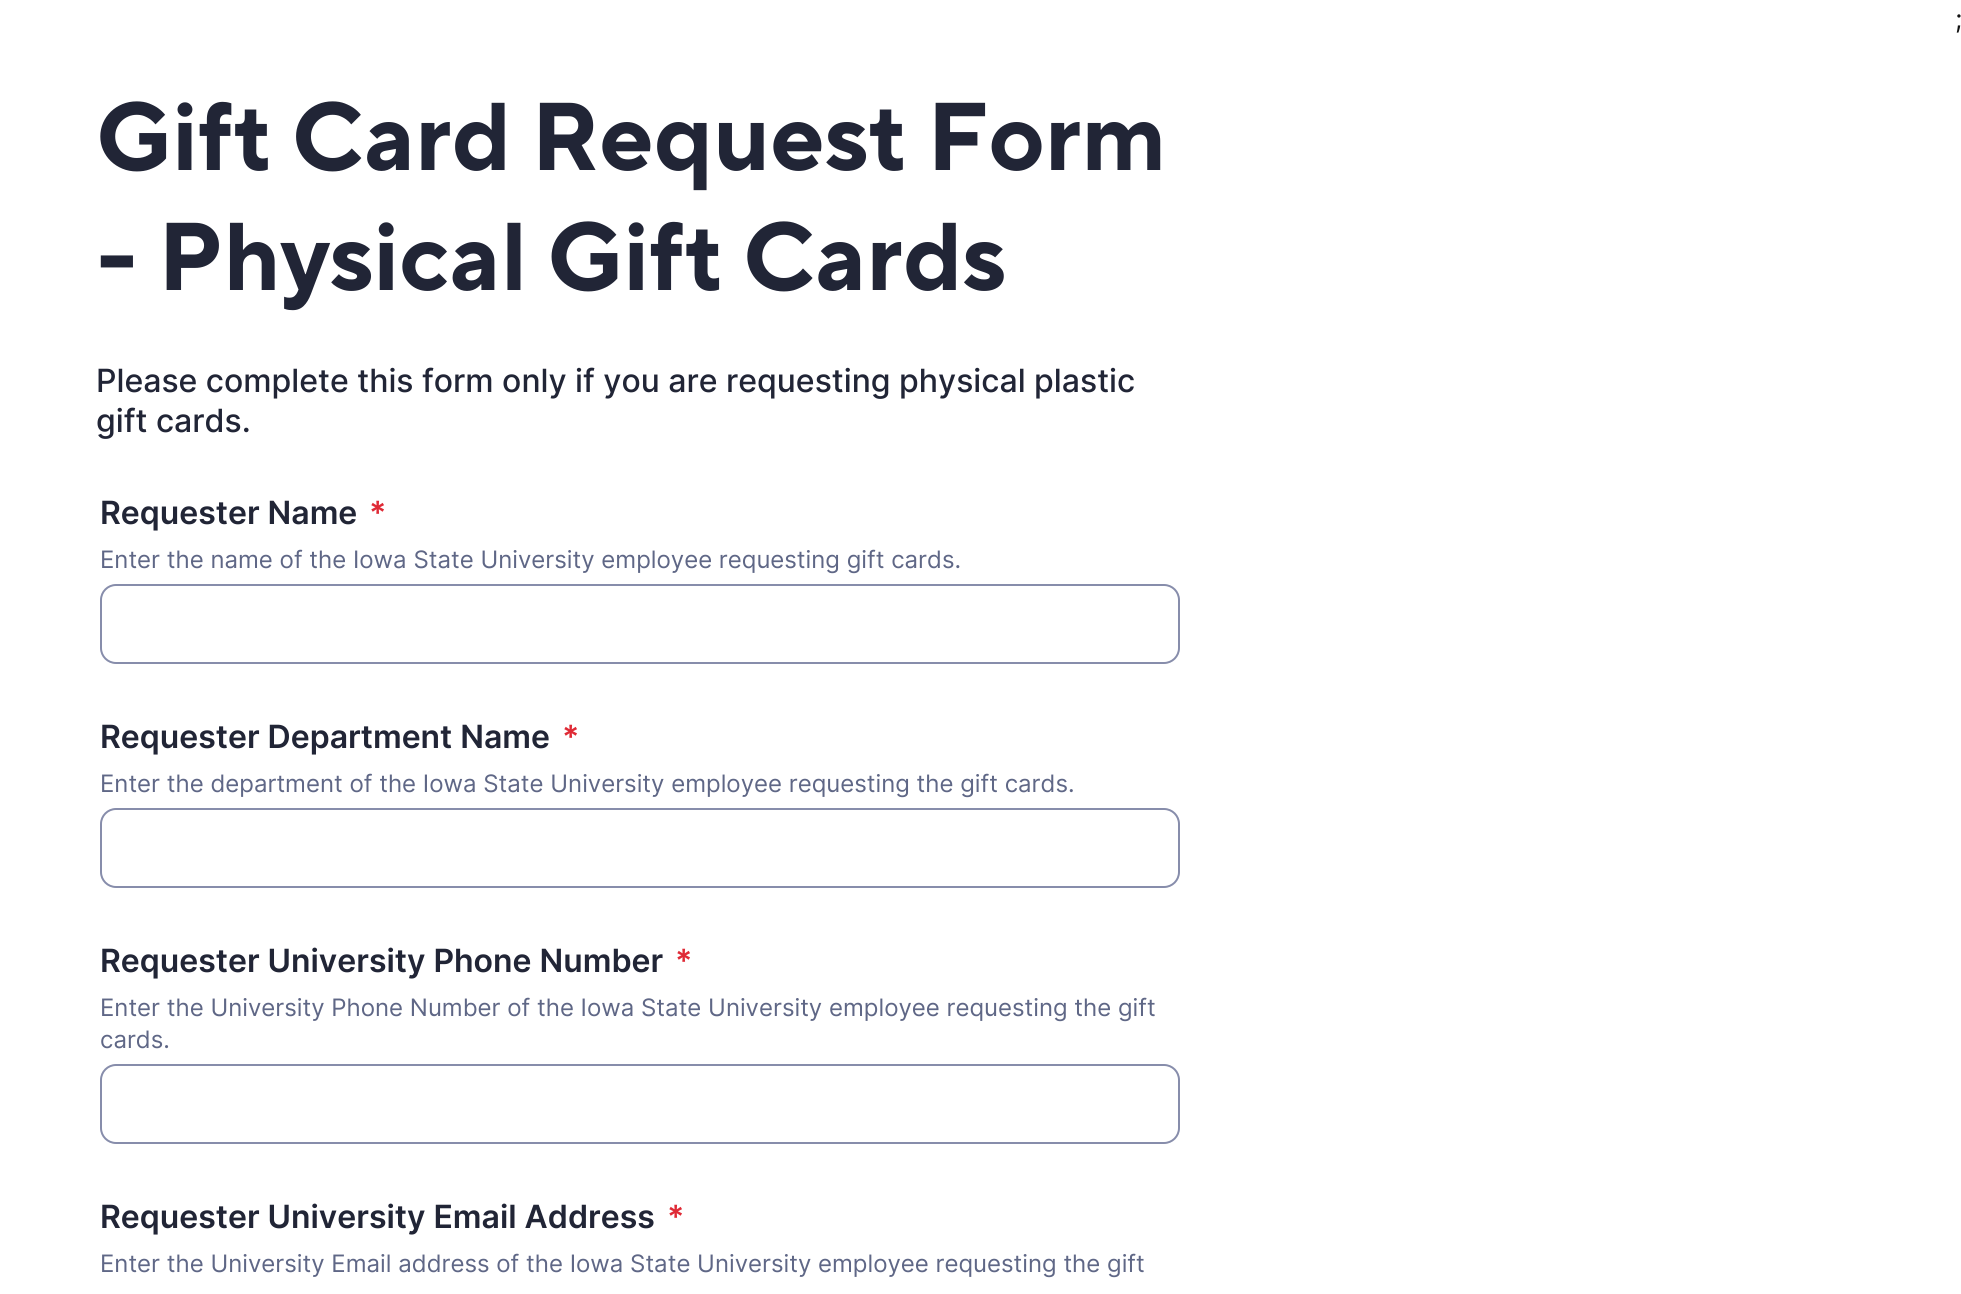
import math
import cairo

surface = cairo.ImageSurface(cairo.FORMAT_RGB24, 1961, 1294)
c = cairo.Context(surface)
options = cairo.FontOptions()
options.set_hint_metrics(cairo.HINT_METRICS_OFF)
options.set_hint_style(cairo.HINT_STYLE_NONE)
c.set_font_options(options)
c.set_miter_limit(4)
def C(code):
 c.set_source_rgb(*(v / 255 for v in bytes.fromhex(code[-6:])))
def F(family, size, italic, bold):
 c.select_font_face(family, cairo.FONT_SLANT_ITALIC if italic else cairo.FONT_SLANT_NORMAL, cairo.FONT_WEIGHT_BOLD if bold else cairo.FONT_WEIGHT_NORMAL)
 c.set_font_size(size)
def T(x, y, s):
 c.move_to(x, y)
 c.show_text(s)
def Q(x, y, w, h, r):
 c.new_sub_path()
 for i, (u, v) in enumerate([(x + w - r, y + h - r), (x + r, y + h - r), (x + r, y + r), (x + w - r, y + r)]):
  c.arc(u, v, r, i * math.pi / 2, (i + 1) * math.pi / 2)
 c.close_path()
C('ffffff')
c.paint()
F('Inter',26,0,0)
C('111111')
T(1955,28,';')
F('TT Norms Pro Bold',96,0,1)
C('212536')
T(96,170,'Gift Card Request Form')
T(96,290,'- Physical Gift Cards')
F('Inter Medium',32,0,0)
T(96,392,'Please complete this form only if you are requesting physical plastic')
T(96,432,'gift cards.')
F('Inter SemiBold',32,0,0)
T(100,524,'Requester Name')
C('df2a36')
T(369,524,'*')
F('Inter',24,0,0)
C('5f6786')
T(100,568,'Enter the name of the Iowa State University employee requesting gift cards.')
Q(101,585,1078,78,15)
C('878dab')
c.stroke()
F('Inter SemiBold',32,0,0)
C('212536')
T(100,748,'Requester Department Name')
C('df2a36')
T(562,748,'*')
F('Inter',24,0,0)
C('5f6786')
T(100,792,'Enter the department of the Iowa State University employee requesting the gift cards.')
Q(101,809,1078,78,15)
C('878dab')
c.stroke()
F('Inter SemiBold',32,0,0)
C('212536')
T(100,972,'Requester University Phone Number')
C('df2a36')
T(675,972,'*')
F('Inter',24,0,0)
C('5f6786')
T(100,1016,'Enter the University Phone Number of the Iowa State University employee requesting the gift')
T(100,1048,'cards.')
Q(101,1065,1078,78,15)
C('878dab')
c.stroke()
F('Inter SemiBold',32,0,0)
C('212536')
T(100,1228,'Requester University Email Address')
C('df2a36')
T(667,1228,'*')
F('Inter',24,0,0)
C('5f6786')
T(100,1272,'Enter the University Email address of the Iowa State University employee requesting the gift')
surface.write_to_png('o.png')
